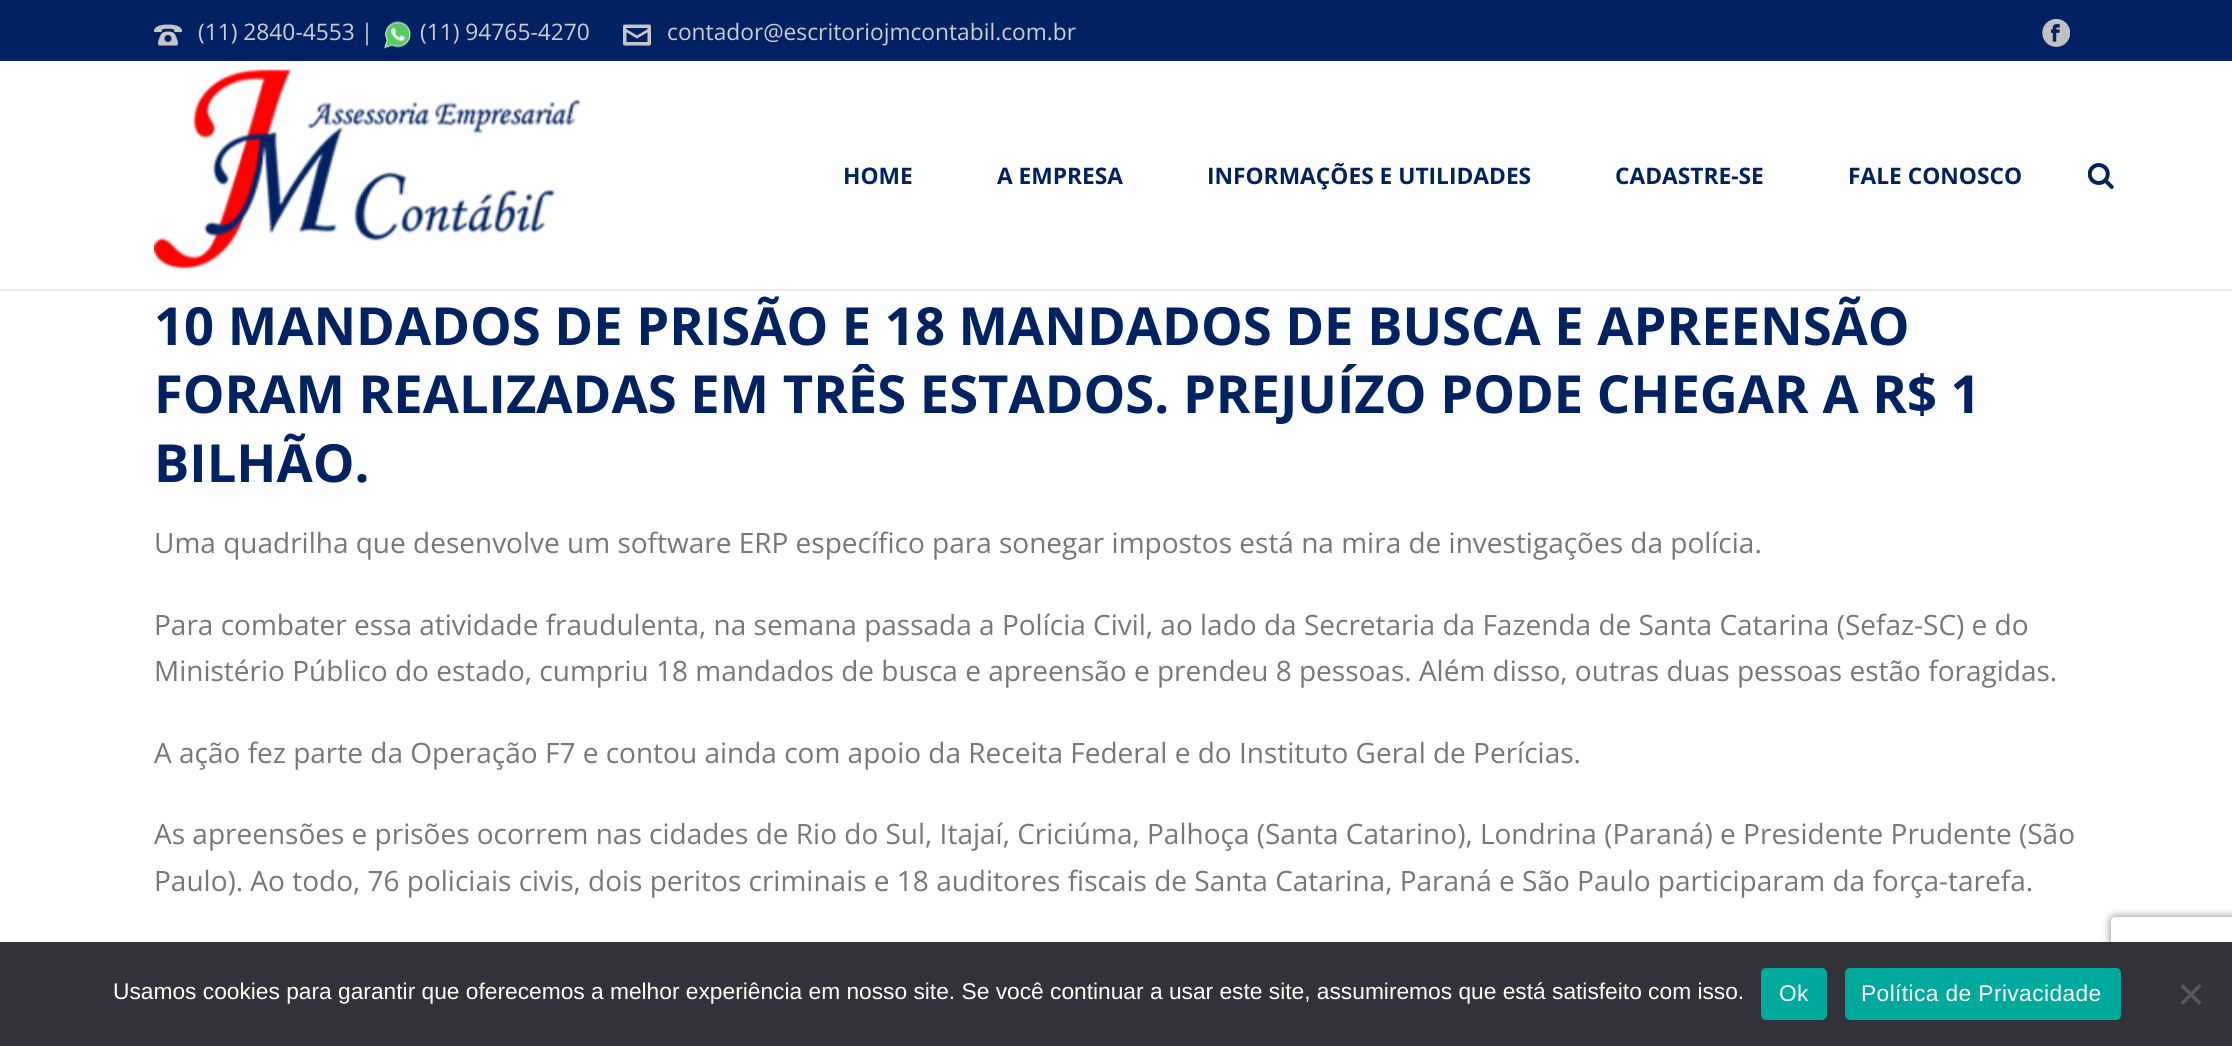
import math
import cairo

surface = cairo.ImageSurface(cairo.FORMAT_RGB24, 2232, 1046)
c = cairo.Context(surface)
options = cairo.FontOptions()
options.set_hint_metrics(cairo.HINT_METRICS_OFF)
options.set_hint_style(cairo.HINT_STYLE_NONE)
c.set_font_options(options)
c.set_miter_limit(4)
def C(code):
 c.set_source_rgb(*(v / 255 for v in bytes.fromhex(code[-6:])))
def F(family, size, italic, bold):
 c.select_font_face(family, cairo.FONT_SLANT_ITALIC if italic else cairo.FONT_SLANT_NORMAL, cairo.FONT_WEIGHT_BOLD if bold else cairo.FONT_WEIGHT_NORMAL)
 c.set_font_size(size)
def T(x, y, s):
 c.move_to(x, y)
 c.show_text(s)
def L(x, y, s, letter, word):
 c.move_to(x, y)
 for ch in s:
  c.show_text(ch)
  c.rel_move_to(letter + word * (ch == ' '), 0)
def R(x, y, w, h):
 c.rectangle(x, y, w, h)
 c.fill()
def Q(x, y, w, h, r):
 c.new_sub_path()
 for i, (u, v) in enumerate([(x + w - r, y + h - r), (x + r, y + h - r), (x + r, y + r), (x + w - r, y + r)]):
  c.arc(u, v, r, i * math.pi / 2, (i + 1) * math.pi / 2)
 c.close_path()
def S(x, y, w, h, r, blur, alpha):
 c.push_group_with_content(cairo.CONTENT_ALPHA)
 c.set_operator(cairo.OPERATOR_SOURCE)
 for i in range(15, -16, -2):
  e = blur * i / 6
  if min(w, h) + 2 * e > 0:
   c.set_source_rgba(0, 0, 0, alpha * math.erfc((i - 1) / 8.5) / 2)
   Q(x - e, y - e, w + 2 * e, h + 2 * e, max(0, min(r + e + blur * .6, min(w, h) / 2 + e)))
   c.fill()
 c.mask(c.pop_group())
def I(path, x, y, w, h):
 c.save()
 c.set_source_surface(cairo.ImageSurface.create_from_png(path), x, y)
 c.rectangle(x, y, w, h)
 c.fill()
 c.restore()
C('ffffff')
c.paint()
C('002262')
R(0,0,2232,61)
I('1.png',154,24,28,22)
F('Open Sans',22.75,0,0)
C('cecece')
T(198,40,'(11) 2840-4553 |')
I('2.png',384,21,27,28)
T(420,40,'(11) 94765-4270')
I('3.png',623,24,28,22)
T(667,40,'contador@escritoriojmcontabil.com.br')
I('4.png',2042,19,28,28)
C('ededed')
R(0,289,2232,2)
I('5.png',154,69,426,200)
F('Open Sans',22.75,0,1)
C('002262')
T(843,184,'HOME')
T(997,184,'A EMPRESA')
T(1207,184,'INFORMAÇÕES E UTILIDADES')
T(1615,184,'CADASTRE-SE')
T(1848,184,'FALE CONOSCO')
I('6.png',2088,163,26,26)
F('Open Sans',52.5,0,1)
T(154,345,'10 MANDADOS DE PRISÃO E 18 MANDADOS DE BUSCA E APREENSÃO')
T(154,413,'FORAM REALIZADAS EM TRÊS ESTADOS. PREJUÍZO PODE CHEGAR A R$ 1')
T(154,482,'BILHÃO.')
F('Open Sans',28,0,0)
C('777777')
T(154,553,'Uma quadrilha que desenvolve um software ERP específico para sonegar impostos está na mira de investigações da polícia.')
T(154,635,'Para combater essa atividade fraudulenta, na semana passada a Polícia Civil, ao lado da Secretaria da Fazenda de Santa Catarina (Sefaz-SC) e do')
T(154,681,'Ministério Público do estado, cumpriu 18 mandados de busca e apreensão e prendeu 8 pessoas. Além disso, outras duas pessoas estão foragidas.')
T(154,763,'A ação fez parte da Operação F7 e contou ainda com apoio da Receita Federal e do Instituto Geral de Perícias.')
T(154,844,'As apreensões e prisões ocorrem nas cidades de Rio do Sul, Itajaí, Criciúma, Palhoça (Santa Catarino), Londrina (Paraná) e Presidente Prudente (São')
T(154,891,'Paulo). Ao todo, 76 policiais civis, dois peritos criminais e 18 auditores fiscais de Santa Catarina, Paraná e São Paulo participaram da força-tarefa.')
c.save()
c.set_fill_rule(cairo.FILL_RULE_EVEN_ODD)
c.new_path()
c.move_to(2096,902)
c.line_to(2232,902)
c.line_to(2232,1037)
c.line_to(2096,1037)
c.close_path()
c.move_to(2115,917)
c.line_to(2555,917)
c.curve_to(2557,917,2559,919,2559,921)
c.line_to(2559,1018)
c.curve_to(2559,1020,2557,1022,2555,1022)
c.line_to(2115,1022)
c.curve_to(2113,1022,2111,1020,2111,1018)
c.line_to(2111,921)
c.curve_to(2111,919,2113,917,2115,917)
c.close_path()
c.clip()
C('808080')
S(2111,917,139,105,4,4.5,1)
c.restore()
C('32323a')
R(0,942,2232,104)
F('Liberation Sans',22.75,0,0)
C('ffffff')
T(113,999,'Usamos cookies para garantir que oferecemos a melhor experiência em nosso site. Se você continuar a usar este site, assumiremos que está satisfeito com isso.')
C('00a99d')
Q(1761,968,66,52,5)
c.fill()
C('ffffff')
L(1779,1001,'Ok',.4,0)
C('00a99d')
Q(1845,968,276,52,5)
c.fill()
C('ffffff')
L(1861,1001,'Política de Privacidade',.4,0)
C('59595d')
c.new_path()
c.move_to(2199,984)
c.line_to(2201.5,986.5)
c.line_to(2183,1005)
c.line_to(2180.5,1002.5)
c.close_path()
c.fill()
c.new_path()
c.move_to(2180.5,986.5)
c.line_to(2183,984)
c.line_to(2201.5,1002.5)
c.line_to(2199,1005)
c.close_path()
c.fill()
surface.write_to_png('o.png')
